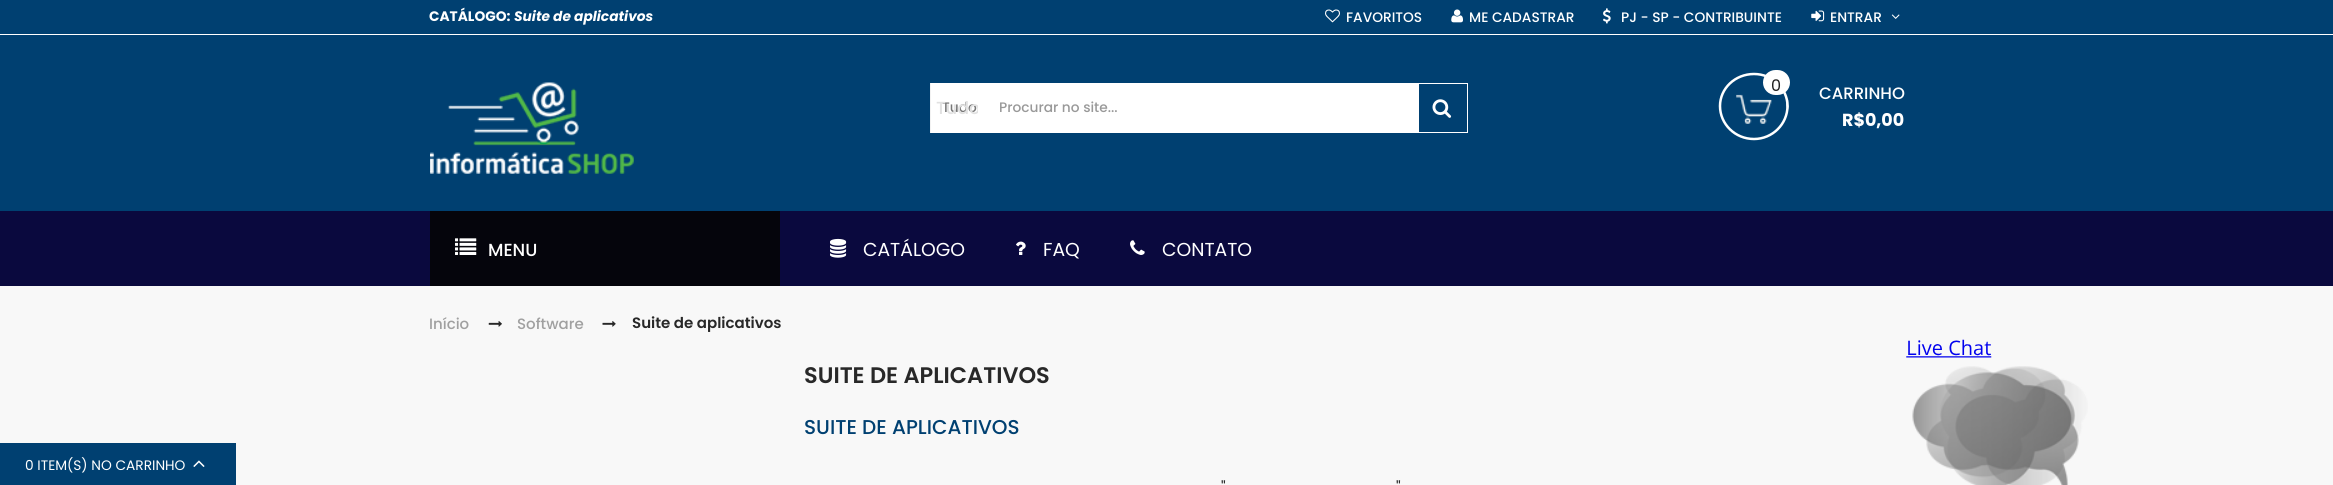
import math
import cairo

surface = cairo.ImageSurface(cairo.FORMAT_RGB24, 2333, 485)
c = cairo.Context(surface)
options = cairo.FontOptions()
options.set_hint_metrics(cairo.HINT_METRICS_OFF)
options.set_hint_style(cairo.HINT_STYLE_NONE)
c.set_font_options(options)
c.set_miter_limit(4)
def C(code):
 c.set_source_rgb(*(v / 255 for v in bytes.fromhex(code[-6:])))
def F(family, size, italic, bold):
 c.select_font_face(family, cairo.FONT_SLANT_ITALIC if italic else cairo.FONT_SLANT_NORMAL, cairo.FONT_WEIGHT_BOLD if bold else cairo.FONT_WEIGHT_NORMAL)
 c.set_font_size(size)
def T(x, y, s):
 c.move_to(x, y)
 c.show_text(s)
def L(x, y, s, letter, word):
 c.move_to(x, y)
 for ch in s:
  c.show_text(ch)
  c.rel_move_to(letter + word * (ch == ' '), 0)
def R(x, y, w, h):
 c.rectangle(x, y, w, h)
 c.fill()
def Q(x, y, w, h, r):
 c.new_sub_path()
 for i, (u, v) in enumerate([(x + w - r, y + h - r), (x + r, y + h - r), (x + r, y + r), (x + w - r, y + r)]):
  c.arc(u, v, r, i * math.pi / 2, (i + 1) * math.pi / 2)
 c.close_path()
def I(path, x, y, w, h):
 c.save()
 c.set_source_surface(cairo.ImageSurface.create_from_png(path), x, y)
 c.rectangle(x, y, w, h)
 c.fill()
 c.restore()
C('f8f8f8')
c.paint()
C('004071')
R(0,443,236,42)
F('Poppins',13.75,0,0)
C('ffffff')
T(25,470,'0 ITEM(S) NO CARRINHO')
I('1.png',193,460,12,7)
C('004071')
R(0,0,2333,211)
F('Poppins',13.75,0,1)
C('ffffff')
T(429,21,'CATÁLOGO:')
F('Poppins',13.75,1,1)
T(514,21,'Suite de aplicativos')
I('2.png',430,82,204,92)
R(931,83,487,50)
F('Poppins Medium',13.75,0,0)
C('777777')
T(942,112,'Tudo')
c.save()
c.rectangle(936,94,42,27)
c.clip()
F('Poppins Medium',17.5,0,0)
C('e1e1e1')
T(936,114,'Tudo')
c.restore()
C('f2f2f2')
R(930,83,1,50)
C('999999')
T(999,112,'Procurar no site...')
c.rectangle(1418.5,83.5,49,49)
C('ffffff')
c.set_line_width(1)
c.stroke()
I('3.png',1432,99,20,19)
I('4.png',1736,94,53,30)
c.new_path()
c.move_to(1754,74)
c.curve_to(1772.5,74,1787.5,88.5,1787.5,106)
c.curve_to(1787.5,124,1772.5,139,1754,139)
c.curve_to(1735,139,1720,124,1720,106)
c.curve_to(1720,88.5,1735,74,1754,74)
c.close_path()
c.set_line_width(2.5)
c.stroke()
Q(1763,70,27,25,12.5)
c.fill()
F('Poppins',16,0,0)
C('222222')
T(1771,91,'0')
F('Poppins Medium',16.5,0,0)
C('ffffff')
T(1819,99,'CARRINHO')
F('Poppins',17.5,0,1)
T(1842,126,'R$0,00')
C('0a093e')
R(0,211,2333,75)
C('05050c')
R(430,211,350,75)
I('5.png',455,238,22,17)
F('Poppins Medium',17.5,0,0)
C('ffffff')
T(488,256,'MENU')
I('6.png',830,238,17,20)
F('Poppins',18.75,0,0)
T(863,256,'CATÁLOGO')
I('7.png',1016,241,10,14)
T(1043,256,'FAQ')
I('8.png',1130,240,15,15)
T(1162,256,'CONTATO')
R(0,34,2333,1)
I('9.png',1325,9,15,14)
F('Poppins Medium',13.75,0,0)
T(1346,22,'FAVORITOS')
I('10.png',1451,9,12,14)
T(1469,22,'ME CADASTRAR')
I('11.png',1603,8,8,16)
T(1621,22,'PJ - SP - CONTRIBUINTE')
I('12.png',1811,10,14,12)
T(1830,22,'ENTRAR')
I('13.png',1891,14,9,5)
F('Poppins Medium',15,0,0)
C('a0a0a0')
T(429,329,'Início')
I('14.png',488,321,14,6)
T(517,329,'Software')
I('15.png',602,321,14,6)
F('Poppins SemiBold',15,0,0)
C('282828')
T(632,328,'Suite de aplicativos')
F('Poppins SemiBold',22.5,0,0)
T(804,383,'SUITE DE APLICATIVOS')
F('Poppins Medium',20,0,0)
C('004071')
T(804,434,'SUITE DE APLICATIVOS')
F('Poppins',16,0,0)
C('282828')
L(1221,493,'"',0,4)
L(1396,493,'"',0,4)
I('16.png',1906,339,182,146)
surface.write_to_png('o.png')
